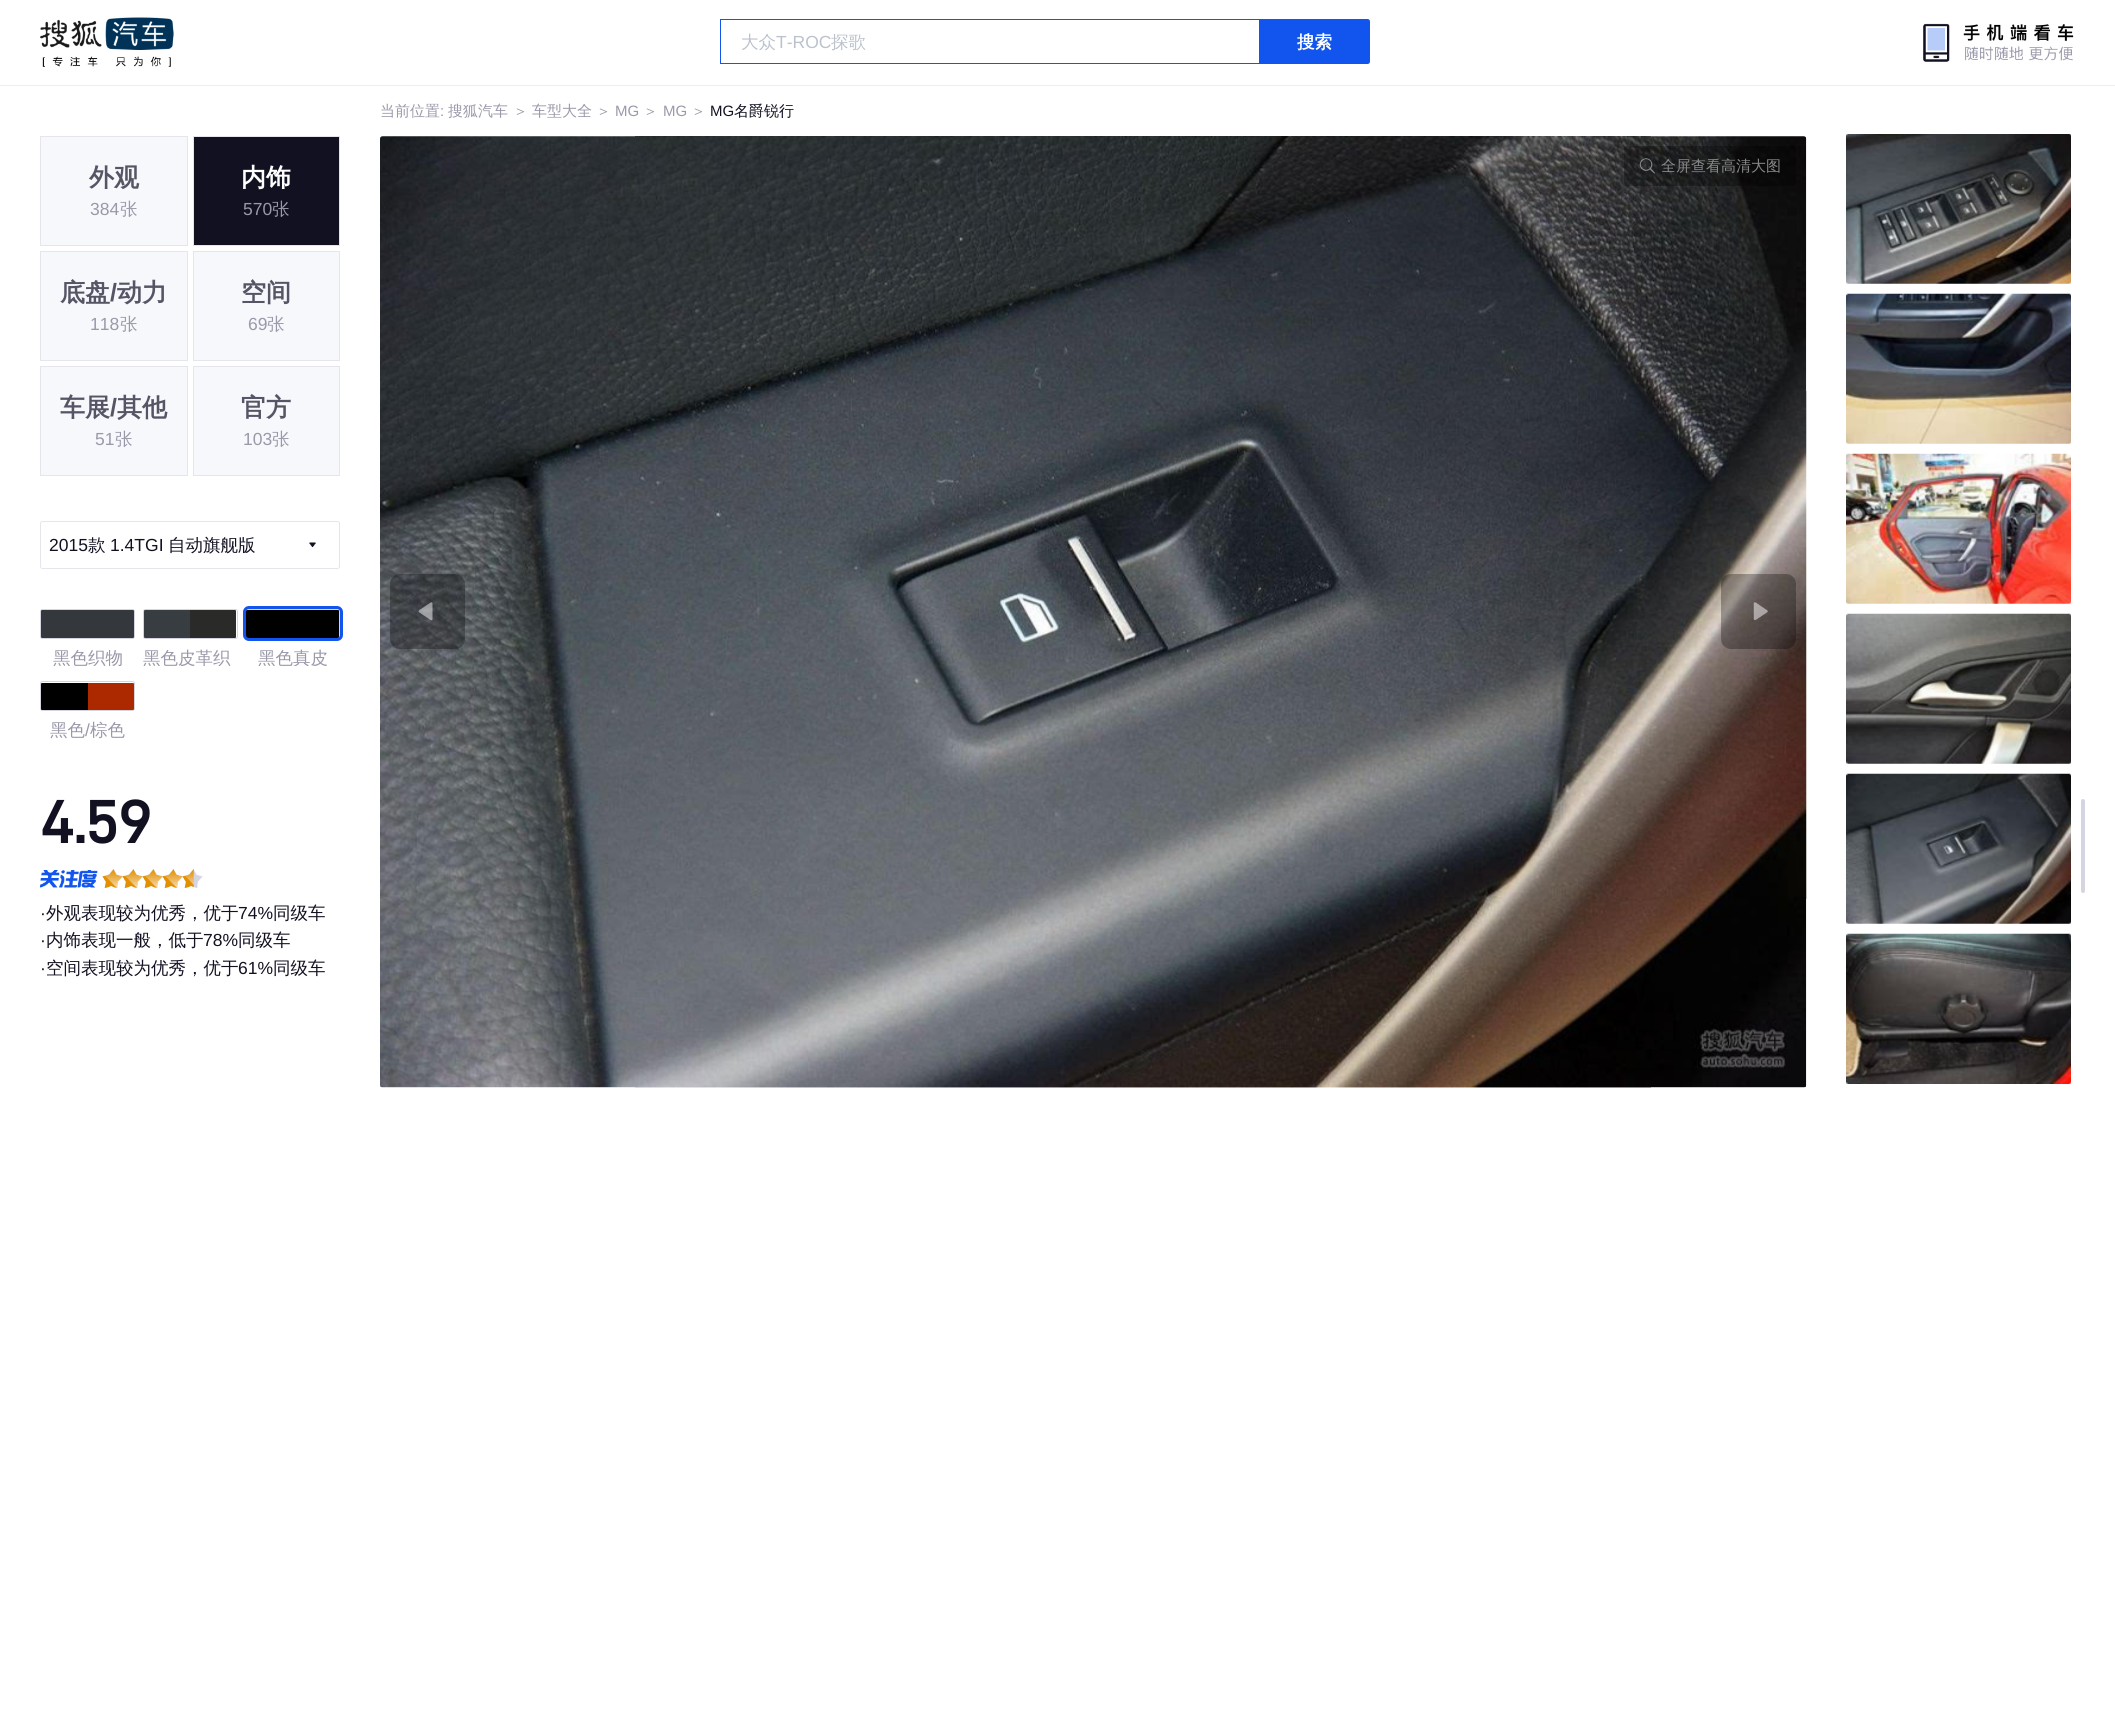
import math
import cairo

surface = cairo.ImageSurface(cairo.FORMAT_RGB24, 2115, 1732)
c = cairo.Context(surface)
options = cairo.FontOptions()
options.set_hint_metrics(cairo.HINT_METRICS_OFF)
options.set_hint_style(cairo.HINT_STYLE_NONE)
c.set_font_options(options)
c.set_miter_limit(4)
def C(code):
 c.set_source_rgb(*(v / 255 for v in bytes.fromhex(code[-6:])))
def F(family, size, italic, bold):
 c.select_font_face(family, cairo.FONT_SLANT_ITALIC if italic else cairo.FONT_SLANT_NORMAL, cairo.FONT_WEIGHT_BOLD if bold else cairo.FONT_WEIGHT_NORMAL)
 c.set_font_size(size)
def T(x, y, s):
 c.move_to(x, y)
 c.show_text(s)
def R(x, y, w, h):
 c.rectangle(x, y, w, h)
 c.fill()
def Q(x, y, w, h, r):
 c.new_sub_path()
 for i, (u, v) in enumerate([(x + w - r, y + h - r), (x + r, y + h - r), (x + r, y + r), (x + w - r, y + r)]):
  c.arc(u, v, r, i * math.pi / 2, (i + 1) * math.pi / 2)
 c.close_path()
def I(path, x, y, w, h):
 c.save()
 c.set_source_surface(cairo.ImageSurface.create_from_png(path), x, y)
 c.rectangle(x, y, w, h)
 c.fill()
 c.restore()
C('ffffff')
c.paint()
C('eeeef0')
R(0,85,2115,1)
I('1.png',40,17,134,50)
c.rectangle(720.5,19.5,539,44)
C('1155ee')
c.set_line_width(1)
c.stroke()
F('WenQuanYi Zen Hei Medium',17.5,0,0)
C('bbc2cc')
T(741,48,'大众')
F('Liberation Sans',17.5,0,0)
T(776,48,'T-ROC')
F('WenQuanYi Zen Hei Medium',17.5,0,0)
T(831,48,'探歌')
C('1155ee')
c.new_path()
c.move_to(1260,19)
c.line_to(1367.5,19)
c.curve_to(1369,19,1370,20,1370,21.5)
c.line_to(1370,61.5)
c.curve_to(1370,63,1369,64,1367.5,64)
c.line_to(1260,64)
c.close_path()
c.fill()
F('WenQuanYi Zen Hei',17.5,0,1)
C('ffffff')
T(1297,48,'搜索')
I('2.png',1923,23,151,39)
F('WenQuanYi Zen Hei Medium',15,0,0)
C('9999aa')
T(380,116,'当前位置')
F('Liberation Sans',15,0,0)
T(440,116,':')
F('WenQuanYi Zen Hei Medium',15,0,0)
T(448,116,'搜狐汽车')
T(513,116,'＞')
T(532,116,'车型大全')
T(596,116,'＞')
F('Liberation Sans',15,0,0)
T(615,116,'MG')
F('WenQuanYi Zen Hei Medium',15,0,0)
T(643,116,'＞')
F('Liberation Sans',15,0,0)
T(663,116,'MG')
F('WenQuanYi Zen Hei Medium',15,0,0)
T(691,116,'＞')
F('Liberation Sans',15,0,0)
C('111122')
T(710,116,'MG')
F('WenQuanYi Zen Hei Medium',15,0,0)
T(734,116,'名爵锐行')
C('f7f8fc')
c.rectangle(40.5,136.5,147,109)
c.fill_preserve()
C('e5e5ee')
c.stroke()
F('WenQuanYi Zen Hei',25,0,1)
C('555566')
T(89,186,'外观')
F('Liberation Sans',17.5,0,0)
C('9999aa')
T(90,215,'384')
F('WenQuanYi Zen Hei Medium',17.5,0,0)
T(120,215,'张')
C('111122')
c.rectangle(193.5,136.5,146,109)
c.fill_preserve()
C('e5e5ee')
c.stroke()
F('WenQuanYi Zen Hei',25,0,1)
C('ffffff')
T(241,186,'内饰')
F('Liberation Sans',17.5,0,0)
C('9999aa')
T(243,215,'570')
F('WenQuanYi Zen Hei Medium',17.5,0,0)
T(272,215,'张')
C('f7f8fc')
c.rectangle(40.5,251.5,147,109)
c.fill_preserve()
C('e5e5ee')
c.stroke()
F('WenQuanYi Zen Hei',25,0,1)
C('555566')
T(60,301,'底盘')
F('Liberation Sans',25,0,1)
T(110,301,'/')
F('WenQuanYi Zen Hei',25,0,1)
T(117,301,'动力')
F('Liberation Sans',17.5,0,0)
C('9999aa')
T(90,330,'118')
F('WenQuanYi Zen Hei Medium',17.5,0,0)
T(120,330,'张')
C('f7f8fc')
c.rectangle(193.5,251.5,146,109)
c.fill_preserve()
C('e5e5ee')
c.stroke()
F('WenQuanYi Zen Hei',25,0,1)
C('555566')
T(241,301,'空间')
F('Liberation Sans',17.5,0,0)
C('9999aa')
T(248,330,'69')
F('WenQuanYi Zen Hei Medium',17.5,0,0)
T(267,330,'张')
C('f7f8fc')
c.rectangle(40.5,366.5,147,109)
c.fill_preserve()
C('e5e5ee')
c.stroke()
F('WenQuanYi Zen Hei',25,0,1)
C('555566')
T(60,416,'车展')
F('Liberation Sans',25,0,1)
T(110,416,'/')
F('WenQuanYi Zen Hei',25,0,1)
T(117,416,'其他')
F('Liberation Sans',17.5,0,0)
C('9999aa')
T(95,445,'51')
F('WenQuanYi Zen Hei Medium',17.5,0,0)
T(115,445,'张')
C('f7f8fc')
c.rectangle(193.5,366.5,146,109)
c.fill_preserve()
C('e5e5ee')
c.stroke()
F('WenQuanYi Zen Hei',25,0,1)
C('555566')
T(241,416,'官方')
F('Liberation Sans',17.5,0,0)
C('9999aa')
T(243,445,'103')
F('WenQuanYi Zen Hei Medium',17.5,0,0)
T(272,445,'张')
Q(40.5,521.5,299,47,2)
C('e5e5ee')
c.stroke()
F('Liberation Sans',17.5,0,0)
C('111122')
T(49,551,'2015')
F('WenQuanYi Zen Hei Medium',17.5,0,0)
T(88,551,'款')
F('Liberation Sans',17.5,0,0)
T(110,551,'1.4TGI')
F('WenQuanYi Zen Hei Medium',17.5,0,0)
T(168,551,'自动旗舰版')
I('3.png',309,542,7,6)
Q(40.5,609.5,94,29,2)
C('d5d5e2')
c.stroke()
C('34373c')
Q(41,610,93,28,1)
c.fill()
c.save()
c.rectangle(53,649,70,17)
c.clip()
C('9999aa')
T(53,664,'黑色织物')
c.restore()
Q(143.5,609.5,94,29,2)
C('d5d5e2')
c.stroke()
C('373d41')
c.new_path()
c.move_to(145,610)
c.line_to(190,610)
c.line_to(190,638)
c.line_to(145,638)
c.curve_to(144.5,638,144,637.5,144,637)
c.line_to(144,611)
c.curve_to(144,610.5,144.5,610,145,610)
c.close_path()
c.fill()
C('2a2b28')
c.new_path()
c.move_to(190,610)
c.line_to(235,610)
c.curve_to(235.5,610,236,610.5,236,611)
c.line_to(236,637)
c.curve_to(236,637.5,235.5,638,235,638)
c.line_to(190,638)
c.close_path()
c.fill()
c.save()
c.rectangle(143,649,95,17)
c.clip()
C('9999aa')
T(143,664,'黑色皮革织')
c.restore()
Q(245.5,609.5,94,29,2)
C('d5d5e2')
c.stroke()
C('000000')
Q(246,610,93,28,1)
c.fill()
Q(244.5,607.5,97,32,4.5)
C('1155ee')
c.set_line_width(3)
c.stroke()
c.save()
c.rectangle(258,649,70,17)
c.clip()
C('9999aa')
T(258,664,'黑色真皮')
c.restore()
Q(40.5,681.5,94,29,2)
C('d5d5e2')
c.set_line_width(1)
c.stroke()
C('000000')
c.new_path()
c.move_to(42,683)
c.line_to(88,683)
c.line_to(88,710)
c.line_to(42,710)
c.curve_to(41.5,710,41,709.5,41,709)
c.line_to(41,684)
c.curve_to(41,683.5,41.5,683,42,683)
c.close_path()
c.fill()
C('ac2900')
c.new_path()
c.move_to(88,683)
c.line_to(133,683)
c.curve_to(133.5,683,134,683.5,134,684)
c.line_to(134,709)
c.curve_to(134,709.5,133.5,710,133,710)
c.line_to(88,710)
c.close_path()
c.fill()
C('9999aa')
T(50,736,'黑色')
F('Liberation Sans',17.5,0,0)
T(85,736,'/')
F('WenQuanYi Zen Hei Medium',17.5,0,0)
T(90,736,'棕色')
F('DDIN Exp',60,0,1)
C('111122')
T(40,843,'4.59')
I('4.png',40,870,58,18)
I('5.png',102,869,21,19)
I('9.png',122,869,21,19)
I('6.png',102,869,21,19)
I('9.png',142,869,21,19)
I('7.png',122,869,21,19)
I('9.png',162,869,21,19)
I('7.png',142,869,21,19)
I('9.png',182,869,21,19)
I('7.png',162,869,21,19)
I('8.png',182,869,12,19)
F('Liberation Sans',17.5,0,0)
T(40,919,'·')
F('WenQuanYi Zen Hei Medium',17.5,0,0)
T(46,919,'外观表现较为优秀，优于')
F('Liberation Sans',17.5,0,0)
T(238,919,'74%')
F('WenQuanYi Zen Hei Medium',17.5,0,0)
T(273,919,'同级车')
F('Liberation Sans',17.5,0,0)
T(40,946,'·')
F('WenQuanYi Zen Hei Medium',17.5,0,0)
T(46,946,'内饰表现一般，低于')
F('Liberation Sans',17.5,0,0)
T(203,946,'78%')
F('WenQuanYi Zen Hei Medium',17.5,0,0)
T(238,946,'同级车')
F('Liberation Sans',17.5,0,0)
T(40,974,'·')
F('WenQuanYi Zen Hei Medium',17.5,0,0)
T(46,974,'空间表现较为优秀，优于')
F('Liberation Sans',17.5,0,0)
T(238,974,'61%')
F('WenQuanYi Zen Hei Medium',17.5,0,0)
T(273,974,'同级车')
I('10.png',380,136,1427,952)
c.set_source_rgba(0,0,0,0.3)
Q(1624,146,172,40,2.5)
c.fill()
I('11.png',1639,158,16,16)
F('WenQuanYi Zen Hei Medium',15,0,0)
C('8a8a8a')
T(1661,171,'全屏查看高清大图')
c.set_source_rgba(0,0,0,0.3)
Q(390,574,75,75,10)
c.fill()
I('12.png',418,602,15,19)
Q(1721,574,75,75,10)
c.fill()
I('13.png',1753,602,15,19)
I('14.png',1846,134,225,150)
I('15.png',1846,293,225,151)
I('16.png',1846,453,225,151)
I('17.png',1846,613,225,151)
I('18.png',1846,773,225,151)
I('19.png',1846,933,225,151)
C('d5d5e2')
Q(2081,799,4,94,2)
c.fill()
surface.write_to_png('o.png')
